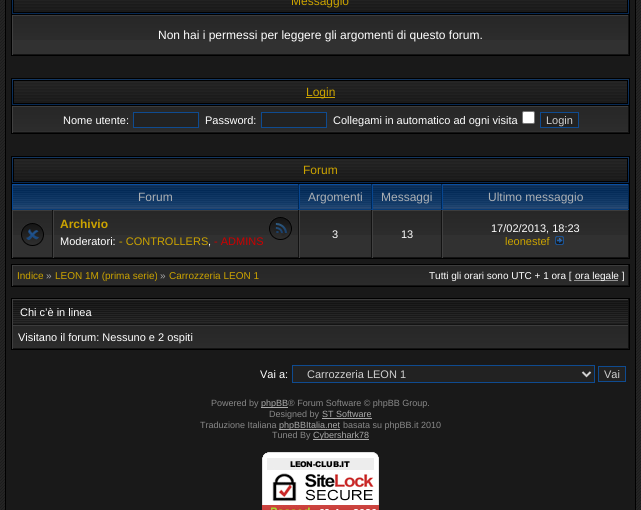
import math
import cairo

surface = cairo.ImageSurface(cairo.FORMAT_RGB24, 641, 510)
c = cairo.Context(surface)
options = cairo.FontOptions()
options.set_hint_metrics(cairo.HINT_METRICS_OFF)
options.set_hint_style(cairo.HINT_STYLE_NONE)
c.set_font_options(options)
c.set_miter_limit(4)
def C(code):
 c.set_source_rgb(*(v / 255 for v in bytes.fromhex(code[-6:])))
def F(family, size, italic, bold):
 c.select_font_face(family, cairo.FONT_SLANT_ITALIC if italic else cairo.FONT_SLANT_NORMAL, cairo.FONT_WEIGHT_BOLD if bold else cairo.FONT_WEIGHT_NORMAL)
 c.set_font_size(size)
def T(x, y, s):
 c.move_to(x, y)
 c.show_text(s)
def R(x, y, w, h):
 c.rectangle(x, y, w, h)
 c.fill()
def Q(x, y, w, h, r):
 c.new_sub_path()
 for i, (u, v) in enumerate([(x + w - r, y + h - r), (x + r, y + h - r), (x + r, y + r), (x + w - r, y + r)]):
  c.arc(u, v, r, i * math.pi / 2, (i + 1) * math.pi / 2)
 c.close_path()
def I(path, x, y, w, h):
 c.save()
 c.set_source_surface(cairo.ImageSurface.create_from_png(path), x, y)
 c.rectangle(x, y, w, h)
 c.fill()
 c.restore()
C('ffffff')
c.paint()
I('1.png',0,0,641,510)
C('000000')
R(635,0,1,510)
R(5,0,1,510)
C('191919')
R(6,0,629,510)
I('2.png',14,0,613,14)
I('3.png',11,0,3,14)
I('4.png',627,0,3,14)
F('Liberation Sans',12,0,0)
C('cba300')
T(291,5,'Messaggio')
c.rectangle(11.5,14.5,618,41)
C('000000')
c.set_line_width(1)
c.stroke()
C('313131')
R(13,40,615,14)
I('5.png',13,16,615,24)
C('3c3c3c')
R(12,15,617,1)
C('121212')
R(628,15,1,40)
C('131313')
R(12,54,617,1)
C('404040')
R(12,15,1,40)
C('ffffff')
T(158,39,'Non hai i permessi per leggere gli argomenti di questo forum.')
I('6.png',11,78,619,27)
I('7.png',11,79,3,26)
I('8.png',627,79,3,26)
C('cba300')
R(306,97,29,1)
T(306,96,'Login')
c.rectangle(11.5,105.5,618,28)
C('000000')
c.stroke()
C('313131')
R(13,131,615,1)
I('5.png',13,107,615,24)
C('3c3c3c')
R(12,106,617,1)
C('121212')
R(628,106,1,27)
C('131313')
R(12,132,617,1)
C('404040')
R(12,106,1,27)
F('Liberation Sans',11,0,0)
C('ffffff')
T(63,124,'Nome utente:')
C('222222')
c.rectangle(133.5,112.5,65,15)
c.fill_preserve()
C('0f4b90')
c.stroke()
C('ffffff')
T(205,124,'Password:')
C('222222')
c.rectangle(261.5,112.5,65,15)
c.fill_preserve()
C('0f4b90')
c.stroke()
C('ffffff')
T(333,124,'Collegami in automatico ad ogni visita')
Q(522.5,111.5,12,12,1.5)
c.fill_preserve()
C('767676')
c.stroke()
C('222222')
c.rectangle(540.5,112.5,38,15)
c.fill_preserve()
C('0f4b90')
c.stroke()
C('d0d0d0')
T(546,124,'Login')
I('6.png',11,156,619,27)
I('7.png',11,157,3,26)
I('8.png',627,157,3,26)
F('Liberation Sans',12,0,0)
C('cba300')
T(303,174,'Forum')
C('313131')
R(13,235,615,22)
c.rectangle(11.5,183.5,618,75)
C('000000')
c.stroke()
I('9.png',13,185,285,24)
C('084ea1')
R(12,184,617,1)
C('012753')
R(298,184,1,26)
C('073b77')
R(12,209,287,1)
C('064691')
R(12,184,1,26)
C('acb0b4')
T(138,201,'Forum')
I('10.png',300,185,71,24)
C('012753')
R(371,184,1,26)
C('073b77')
R(299,209,73,1)
C('064691')
R(299,184,1,26)
C('acb0b4')
T(308,201,'Argomenti')
I('11.png',373,185,68,24)
C('012753')
R(441,184,1,26)
C('073b77')
R(372,209,70,1)
C('064691')
R(372,184,1,26)
C('acb0b4')
T(381,201,'Messaggi')
I('12.png',443,185,185,24)
C('012753')
R(628,184,1,26)
C('073b77')
R(442,209,187,1)
C('064691')
R(442,184,1,26)
C('acb0b4')
T(488,201,'Ultimo messaggio')
I('13.png',13,211,39,24)
C('3c3c3c')
R(12,210,617,1)
C('121212')
R(52,210,1,48)
C('131313')
R(12,257,41,1)
C('404040')
R(12,210,1,48)
I('14.png',21,223,23,23)
I('15.png',54,211,244,24)
C('121212')
R(298,210,1,48)
C('131313')
R(53,257,246,1)
C('404040')
R(53,210,1,48)
F('Liberation Sans',12,0,1)
C('cba300')
T(60,228,'Archivio')
F('Liberation Sans',11,0,0)
C('ffffff')
T(60,245,'Moderatori:')
C('cba300')
T(119,245,'- CONTROLLERS')
C('ffffff')
T(208,245,',')
C('cc0000')
T(214,245,'- ADMINS')
I('16.png',269,217,23,23)
I('17.png',300,211,71,24)
C('121212')
R(371,210,1,48)
C('131313')
R(299,257,73,1)
C('404040')
R(299,210,1,48)
C('ffffff')
T(332,238,'3')
I('18.png',373,211,68,24)
C('121212')
R(441,210,1,48)
C('131313')
R(372,257,70,1)
C('404040')
R(372,210,1,48)
C('ffffff')
T(401,238,'13')
I('19.png',443,211,185,24)
C('121212')
R(628,210,1,48)
C('131313')
R(442,257,187,1)
C('404040')
R(442,210,1,48)
C('ffffff')
T(491,232,'17/02/2013, 18:23')
C('cba300')
T(505,245,'leonestef')
I('20.png',555,236,9,9)
c.rectangle(11.5,264.5,618,22)
C('000000')
c.stroke()
I('21.png',13,266,615,19)
C('3c3c3c')
R(12,265,617,1)
C('121212')
R(628,265,1,21)
C('131313')
R(12,285,617,1)
C('404040')
R(12,265,1,21)
F('Liberation Sans',10,0,0)
C('cba300')
T(17,279,'Indice')
C('aaaaaa')
T(46,279,'»')
C('cba300')
T(55,279,'LEON 1M (prima serie)')
C('aaaaaa')
T(160,279,'»')
C('cba300')
T(169,279,'Carrozzeria LEON 1')
C('ffffff')
T(429,279,'Tutti gli orari sono UTC + 1 ora [')
c.new_path()
c.move_to(574.5,280.5)
c.line_to(618.5,280.5)
c.set_dash([1,1])
c.stroke()
T(575,279,'ora legale ]')
c.rectangle(11.5,298.5,618,51)
C('000000')
c.set_dash([])
c.stroke()
I('22.png',13,300,615,24)
C('3c3c3c')
R(12,299,617,1)
C('121212')
R(628,299,1,26)
C('131313')
R(12,324,617,1)
C('404040')
R(12,299,1,26)
F('Liberation Sans',11,0,0)
C('ffffff')
T(20,316,'Chi c’è in linea')
I('23.png',13,326,615,22)
C('3c3c3c')
R(12,325,617,1)
C('121212')
R(628,325,1,24)
C('131313')
R(12,348,617,1)
C('404040')
R(12,325,1,24)
C('ffffff')
T(18,341,'Visitano il forum: Nessuno e 2 ospiti')
T(260,378,'Vai a:')
C('222222')
c.rectangle(292.5,365.5,302,17)
c.fill_preserve()
C('0f4b90')
c.stroke()
c.new_path()
c.move_to(582.5,372)
c.line_to(586.5,376)
c.line_to(590.5,372)
C('d0d0d0')
c.set_line_width(2)
c.stroke()
T(307,378,'Carrozzeria LEON 1')
C('222222')
c.rectangle(598.5,366.5,27,15)
c.fill_preserve()
C('0f4b90')
c.set_line_width(1)
c.stroke()
C('d0d0d0')
T(604,378,'Vai')
F('Liberation Sans',9,0,0)
C('888888')
T(211,406,'Powered by')
C('aaaaaa')
R(261,407,27,1)
T(261,406,'phpBB')
C('888888')
T(288,406,'® Forum Software © phpBB Group.')
T(269,417,'Designed by')
C('aaaaaa')
T(322,417,'ST Software')
R(322,418,50,1)
C('888888')
T(200,428,'Traduzione Italiana')
C('aaaaaa')
R(279,429,61,1)
T(279,428,'phpBBItalia.net')
C('888888')
T(343,428,'basata su phpBB.it 2010')
T(272,438,'Tuned By')
C('aaaaaa')
R(313,439,56,1)
T(313,438,'Cybershark78')
I('24.png',262,452,117,58)
surface.write_to_png('o.png')
